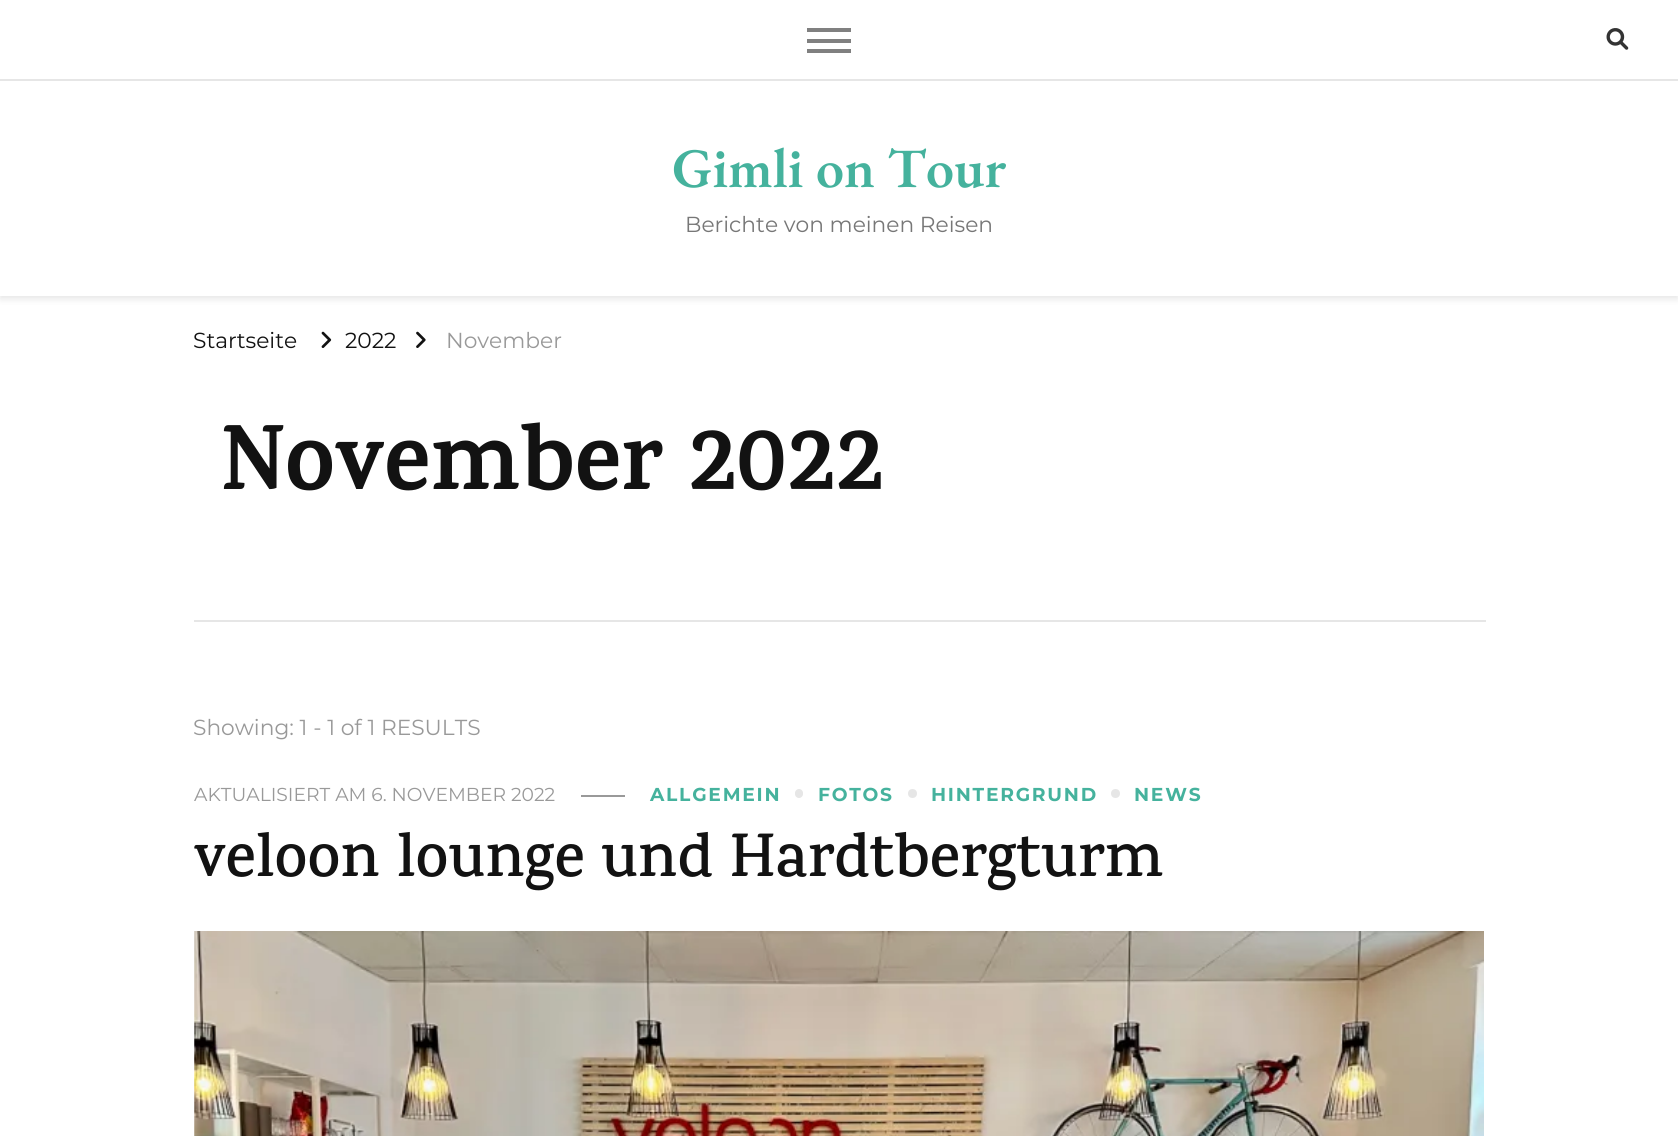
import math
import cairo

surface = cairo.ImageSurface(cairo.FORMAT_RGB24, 1678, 1136)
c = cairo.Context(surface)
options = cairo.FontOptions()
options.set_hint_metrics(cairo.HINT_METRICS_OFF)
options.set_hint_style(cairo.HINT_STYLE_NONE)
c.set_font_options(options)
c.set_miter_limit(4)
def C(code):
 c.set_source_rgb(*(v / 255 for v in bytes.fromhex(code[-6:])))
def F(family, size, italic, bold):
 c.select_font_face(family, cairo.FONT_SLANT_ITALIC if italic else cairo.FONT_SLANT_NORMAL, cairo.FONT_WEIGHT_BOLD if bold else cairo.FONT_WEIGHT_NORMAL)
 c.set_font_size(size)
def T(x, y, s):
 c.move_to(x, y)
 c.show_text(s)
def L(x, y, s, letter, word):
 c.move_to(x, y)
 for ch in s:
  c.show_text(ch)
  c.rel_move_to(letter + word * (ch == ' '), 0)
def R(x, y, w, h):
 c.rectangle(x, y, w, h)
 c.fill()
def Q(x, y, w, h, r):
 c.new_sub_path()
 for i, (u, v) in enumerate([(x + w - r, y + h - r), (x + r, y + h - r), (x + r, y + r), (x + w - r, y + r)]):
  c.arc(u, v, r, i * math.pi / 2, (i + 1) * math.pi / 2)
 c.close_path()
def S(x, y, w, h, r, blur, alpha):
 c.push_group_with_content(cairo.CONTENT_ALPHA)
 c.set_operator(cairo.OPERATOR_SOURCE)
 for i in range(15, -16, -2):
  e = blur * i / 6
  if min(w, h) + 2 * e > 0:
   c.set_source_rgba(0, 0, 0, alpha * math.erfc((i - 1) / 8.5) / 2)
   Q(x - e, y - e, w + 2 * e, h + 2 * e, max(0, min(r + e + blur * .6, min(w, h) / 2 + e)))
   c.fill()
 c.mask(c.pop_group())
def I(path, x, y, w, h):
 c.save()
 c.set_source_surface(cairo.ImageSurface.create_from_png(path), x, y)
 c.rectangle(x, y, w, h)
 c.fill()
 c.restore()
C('ffffff')
c.paint()
c.save()
c.set_fill_rule(cairo.FILL_RULE_EVEN_ODD)
c.new_path()
c.move_to(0,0)
c.line_to(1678,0)
c.line_to(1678,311)
c.line_to(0,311)
c.close_path()
c.move_to(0,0)
c.line_to(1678,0)
c.line_to(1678,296)
c.line_to(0,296)
c.close_path()
c.clip()
C('000000')
S(0,4,1678,295,0,3.5,.1)
c.restore()
C('e6e6e6')
R(0,79,1678,2)
C('808080')
R(807,28,44,4)
R(807,39,44,4)
R(807,49,44,4)
I('1.png',1606,28,23,22)
F('EB Garamond SemiBold',56,0,0)
C('45b29d')
T(672,187,'Gimli on Tour')
F('Montserrat',21.75,0,0)
C('777777')
T(685,232,'Berichte von meinen Reisen')
C('121212')
T(193,348,'Startseite')
I('2.png',321,331,11,17)
T(345,348,'2022')
I('3.png',416,331,10,17)
C('999999')
T(446,348,'November')
C('e6e6e6')
R(194,620,1292,2)
F('Karma',93.25,0,1)
C('121212')
T(220,489,'November 2022')
F('Montserrat',21.75,0,0)
C('999999')
T(193,735,'Showing: 1 - 1 of 1 RESULTS')
F('Montserrat',18.7,0,0)
T(194,801,'AKTUALISIERT AM 6. NOVEMBER 2022')
R(581,795,44,2)
F('Montserrat',18.7,0,1)
C('45b29d')
L(650,801,'ALLGEMEIN',1.75,0)
C('e6e6e6')
Q(795,789,8,9,4)
c.fill()
C('45b29d')
L(818,801,'FOTOS',1.75,0)
C('e6e6e6')
c.new_path()
c.arc(912.5,793.5,4.5,0,2 * math.pi)
c.fill()
C('45b29d')
L(931,801,'HINTERGRUND',1.75,0)
C('e6e6e6')
c.new_path()
c.arc(1115.5,793.5,4.5,0,2 * math.pi)
c.fill()
C('45b29d')
L(1134,801,'NEWS',1.75,0)
F('Karma SemiBold',62.2,0,0)
C('121212')
T(194,876,'veloon lounge und Hardtbergturm')
I('4.png',194,931,1290,205)
surface.write_to_png('o.png')
